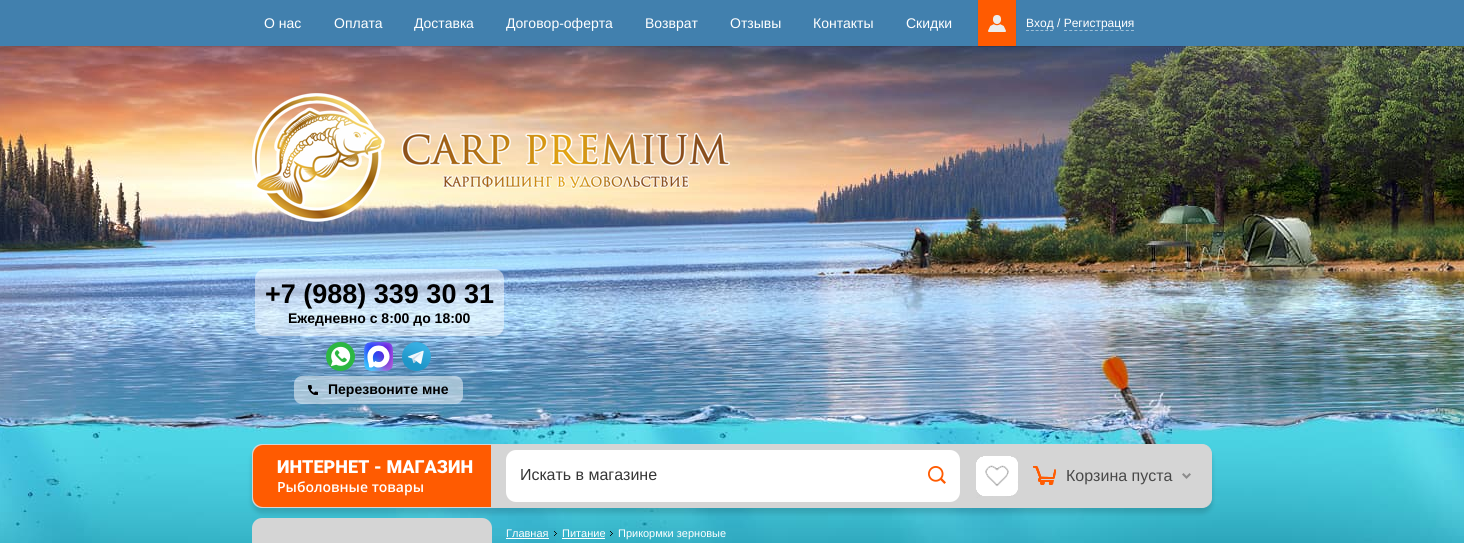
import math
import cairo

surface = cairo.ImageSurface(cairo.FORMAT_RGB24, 1464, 543)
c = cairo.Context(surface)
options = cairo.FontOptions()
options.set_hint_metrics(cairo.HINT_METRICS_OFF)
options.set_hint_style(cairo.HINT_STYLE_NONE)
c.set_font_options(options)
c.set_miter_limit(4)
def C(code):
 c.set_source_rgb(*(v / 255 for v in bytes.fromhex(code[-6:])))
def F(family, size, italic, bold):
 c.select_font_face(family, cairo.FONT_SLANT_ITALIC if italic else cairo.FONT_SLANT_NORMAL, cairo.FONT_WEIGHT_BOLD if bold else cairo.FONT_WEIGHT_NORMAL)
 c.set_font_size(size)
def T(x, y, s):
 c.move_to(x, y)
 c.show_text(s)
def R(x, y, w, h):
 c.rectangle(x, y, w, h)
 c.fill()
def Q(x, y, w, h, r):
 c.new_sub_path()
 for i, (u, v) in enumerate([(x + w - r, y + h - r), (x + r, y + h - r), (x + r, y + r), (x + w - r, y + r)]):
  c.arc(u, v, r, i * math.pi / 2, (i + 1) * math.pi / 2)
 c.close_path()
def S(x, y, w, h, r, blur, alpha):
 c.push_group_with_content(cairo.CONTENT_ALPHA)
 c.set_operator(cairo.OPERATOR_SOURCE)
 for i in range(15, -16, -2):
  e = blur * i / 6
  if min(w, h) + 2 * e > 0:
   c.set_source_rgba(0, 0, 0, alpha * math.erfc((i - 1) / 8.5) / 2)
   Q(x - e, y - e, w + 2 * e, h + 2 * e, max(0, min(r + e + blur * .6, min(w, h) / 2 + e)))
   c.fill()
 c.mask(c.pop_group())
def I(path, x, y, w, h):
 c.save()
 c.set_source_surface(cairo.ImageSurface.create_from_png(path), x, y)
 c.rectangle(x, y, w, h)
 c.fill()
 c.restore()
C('ffffff')
c.paint()
I('1.png',0,46,1464,497)
C('000000')
S(0,1,1464,46,0,.5,.1)
C('4180ae')
R(0,0,1464,46)
F('Liberation Sans',14,0,0)
C('ffffff')
T(264,28,'О нас')
T(334,28,'Оплата')
T(414,28,'Доставка')
T(506,28,'Договор-оферта')
T(645,28,'Возврат')
T(730,28,'Отзывы')
T(813,28,'Контакты')
T(906,28,'Скидки')
C('000000')
S(978,1,38,46,0,.5,.1)
C('ff5b01')
R(978,0,38,46)
I('2.png',988,15,18,17)
F('Liberation Sans',12,0,0)
C('ffffff')
T(1026,27,'Вход / Регистрация')
c.new_path()
c.move_to(1026,30.5)
c.line_to(1053,30.5)
C('a0c0d7')
c.set_line_width(1)
c.set_dash([3,1.8])
c.stroke()
c.new_path()
c.move_to(1064,30.5)
c.line_to(1134,30.5)
c.set_dash([3,2.15])
c.stroke()
I('3.png',252,93,478,129)
c.set_source_rgba(1,1,1,0.5)
Q(255,269,249,67,10)
c.fill()
F('Liberation Sans',27,0,1)
C('000000')
T(265,303,'+7 (988) 339 30 31')
F('Liberation Sans',14,0,1)
T(288,323,'Ежедневно с 8:00 до 18:00')
I('4.png',326,342,29,29)
I('5.png',364,342,29,29)
I('6.png',402,342,29,29)
c.set_source_rgba(1,1,1,0.5)
Q(294,376,169,28,8)
c.fill()
I('7.png',308,385,10,10)
C('000000')
T(328,394,'Перезвоните мне')
C('000000')
S(252,449,960,64,10,2.5,.15)
C('d5d5d5')
Q(252.5,444.5,959,63,9.5)
c.fill_preserve()
c.set_dash([])
c.stroke()
C('ff5b01')
c.new_path()
c.move_to(263,445)
c.line_to(491,445)
c.line_to(491,507)
c.line_to(263,507)
c.curve_to(257.5,507,253,502.5,253,497)
c.line_to(253,455)
c.curve_to(253,449.5,257.5,445,263,445)
c.close_path()
c.fill()
I('8.png',976,456,42,42)
F('Roboto Black',18,0,0)
C('ffffff')
T(277,473,'ИНТЕРНЕТ - МАГАЗИН')
F('Open Sans SemiBold',14,0,0)
T(277,492,'Рыболовные товары')
Q(506,450,454,52,10)
c.fill()
F('Liberation Sans',16,0,0)
C('363636')
T(520,480,'Искать в магазине')
I('9.png',928,466,18,18)
I('10.png',1033,466,23,19)
C('484848')
T(1066,481,'Корзина пуста')
I('11.png',1182,473,9,6)
C('d5d5d5')
Q(252,518,240,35,10)
c.fill()
F('Liberation Sans',11,0,0)
C('ffffff')
T(506,537,'Главная')
R(506,538,43,1)
I('12.png',554,531,3,5)
T(562,537,'Питание')
R(562,538,43,1)
I('13.png',610,531,3,5)
T(618,537,'Прикормки зерновые')
surface.write_to_png('o.png')
